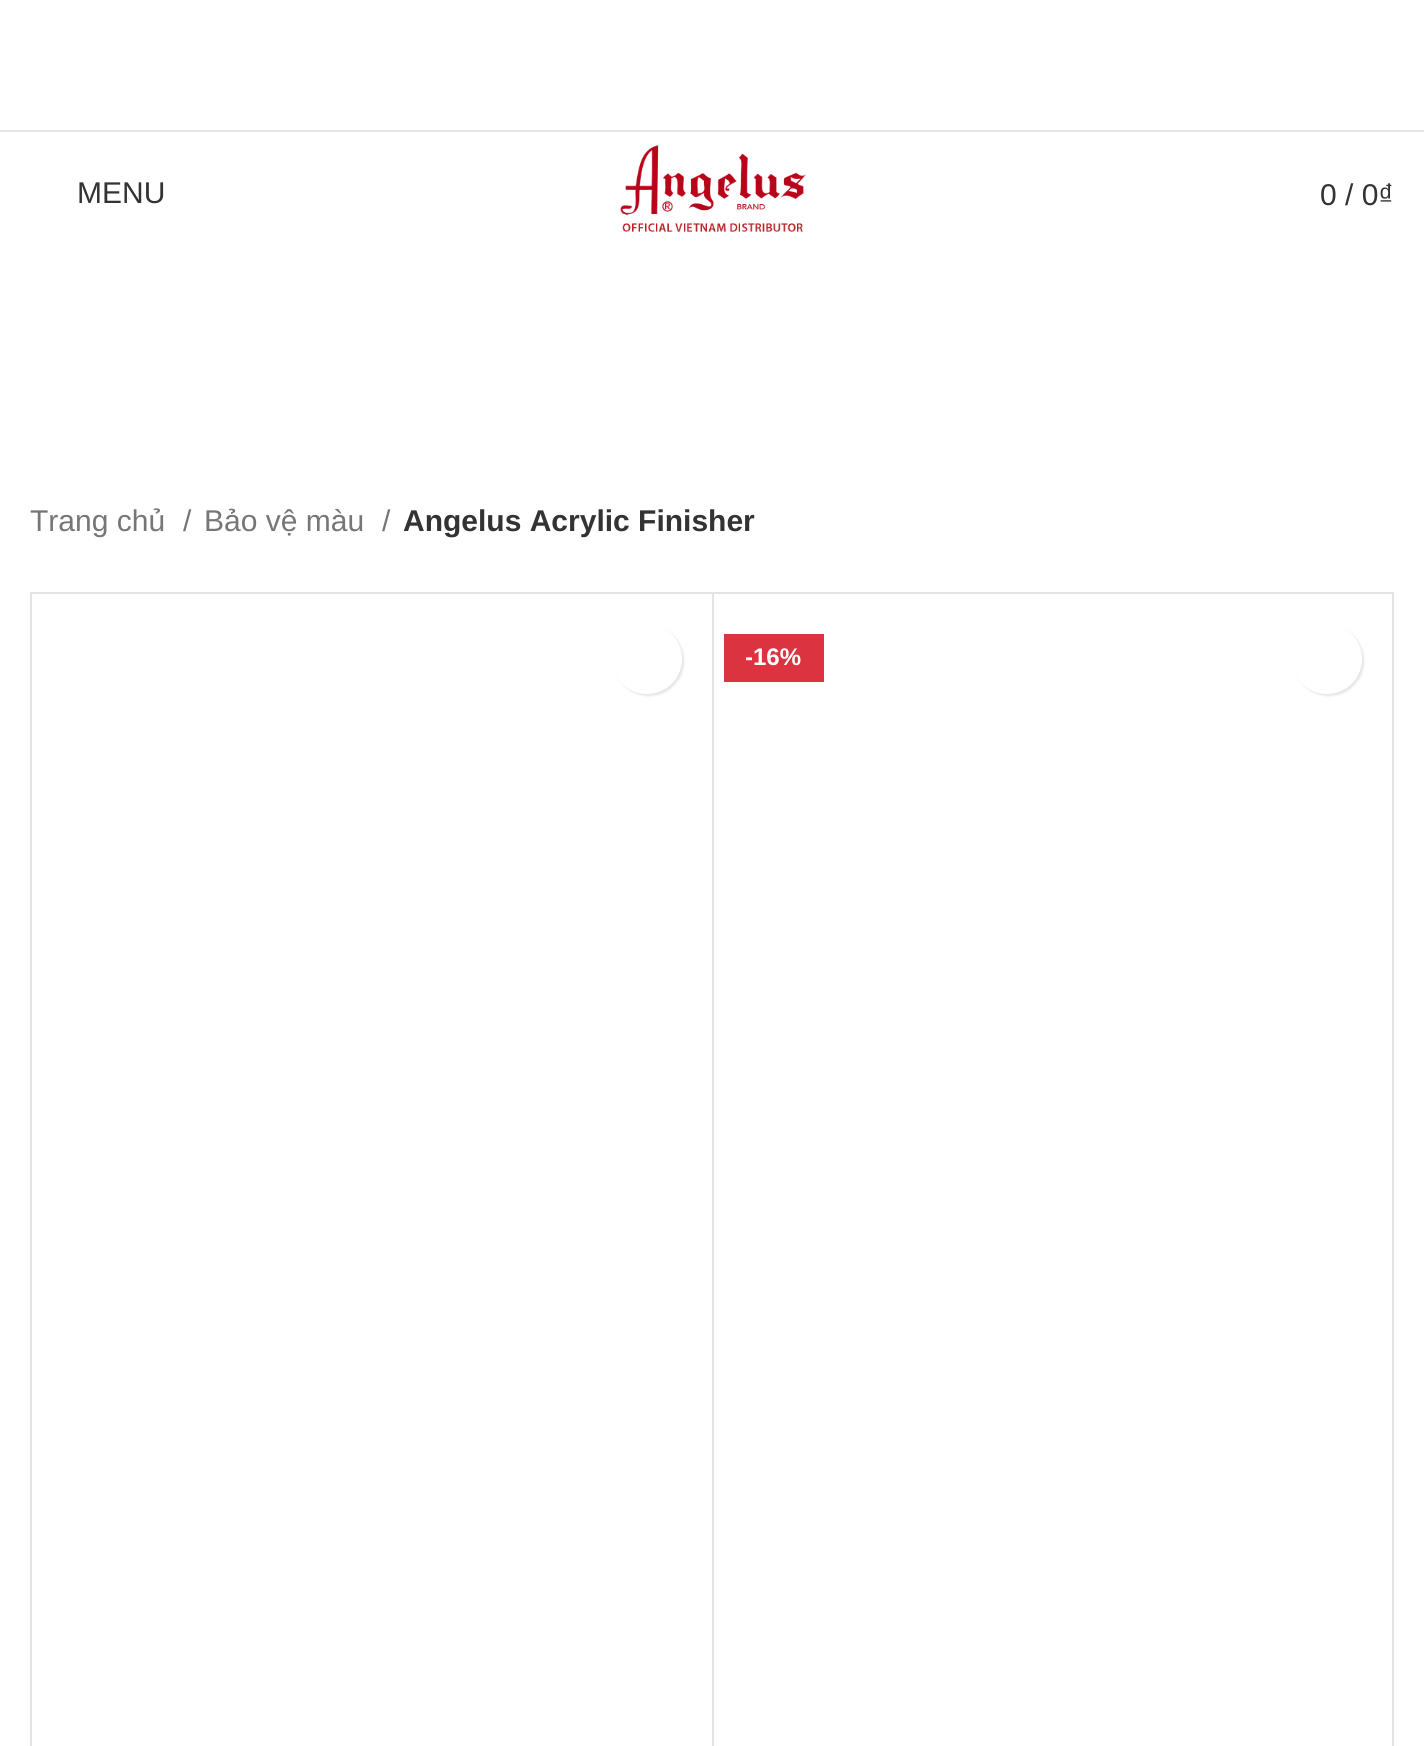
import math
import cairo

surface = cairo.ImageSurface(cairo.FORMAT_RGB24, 1424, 1746)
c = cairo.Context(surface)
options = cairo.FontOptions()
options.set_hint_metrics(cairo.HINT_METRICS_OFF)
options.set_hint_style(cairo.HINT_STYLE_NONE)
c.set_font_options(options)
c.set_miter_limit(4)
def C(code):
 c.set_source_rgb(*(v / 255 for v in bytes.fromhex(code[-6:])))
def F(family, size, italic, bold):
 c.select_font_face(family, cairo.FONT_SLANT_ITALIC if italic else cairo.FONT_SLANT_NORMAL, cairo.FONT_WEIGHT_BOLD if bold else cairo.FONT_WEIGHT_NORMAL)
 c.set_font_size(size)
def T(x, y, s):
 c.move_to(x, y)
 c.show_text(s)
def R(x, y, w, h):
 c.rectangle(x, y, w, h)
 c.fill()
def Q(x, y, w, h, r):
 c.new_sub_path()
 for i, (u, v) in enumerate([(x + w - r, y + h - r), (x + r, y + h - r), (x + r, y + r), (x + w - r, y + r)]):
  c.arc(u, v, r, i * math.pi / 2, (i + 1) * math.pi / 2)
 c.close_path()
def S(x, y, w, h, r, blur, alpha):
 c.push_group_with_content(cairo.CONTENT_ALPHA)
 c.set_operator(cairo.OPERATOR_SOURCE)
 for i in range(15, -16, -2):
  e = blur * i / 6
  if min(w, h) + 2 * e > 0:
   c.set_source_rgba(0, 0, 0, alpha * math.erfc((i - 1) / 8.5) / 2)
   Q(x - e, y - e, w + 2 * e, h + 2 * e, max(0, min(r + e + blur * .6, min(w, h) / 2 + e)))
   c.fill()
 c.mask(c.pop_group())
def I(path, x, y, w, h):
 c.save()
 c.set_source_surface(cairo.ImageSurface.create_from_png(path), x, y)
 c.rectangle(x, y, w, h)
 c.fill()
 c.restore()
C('ffffff')
c.paint()
C('e6e6e4')
R(0,130,1424,2)
F('Liberation Sans',30,0,0)
C('333333')
T(77,203,'MENU')
I('1.png',620,145,186,87)
T(1320,205,'0 / 0₫')
C('767676')
T(30,531,'Trang chủ')
T(183,531,'/')
T(204,531,'Bảo vệ màu')
T(382,531,'/')
F('Liberation Sans',30,0,1)
C('333333')
T(403,531,'Angelus Acrylic Finisher')
C('e4e4e4')
R(30,592,2,1154)
c.new_path()
c.move_to(32,592)
c.line_to(714,592)
c.line_to(712,594)
c.line_to(32,594)
c.close_path()
c.fill()
c.set_source_rgba(0,0,0,0.11)
c.new_path()
c.move_to(714,592)
c.line_to(714,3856)
c.line_to(712,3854)
c.line_to(712,594)
c.close_path()
c.fill()
C('000000')
S(614,626,70,70,35,1,.1)
C('ffffff')
c.arc(647,659,35,0,2 * math.pi)
c.fill()
C('e4e4e4')
c.new_path()
c.move_to(714,592)
c.line_to(1394,592)
c.line_to(1392,594)
c.line_to(714,594)
c.close_path()
c.fill()
c.set_source_rgba(0,0,0,0.11)
c.new_path()
c.move_to(1394,592)
c.line_to(1394,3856)
c.line_to(1392,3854)
c.line_to(1392,594)
c.close_path()
c.fill()
C('db3340')
R(724,634,100,48)
F('Liberation Sans',24,0,1)
C('ffffff')
T(745,665,'-16%')
C('000000')
S(1294,626,70,70,35,1,.1)
C('ffffff')
c.arc(1327,659,35,0,2 * math.pi)
c.fill()
surface.write_to_png('o.png')
